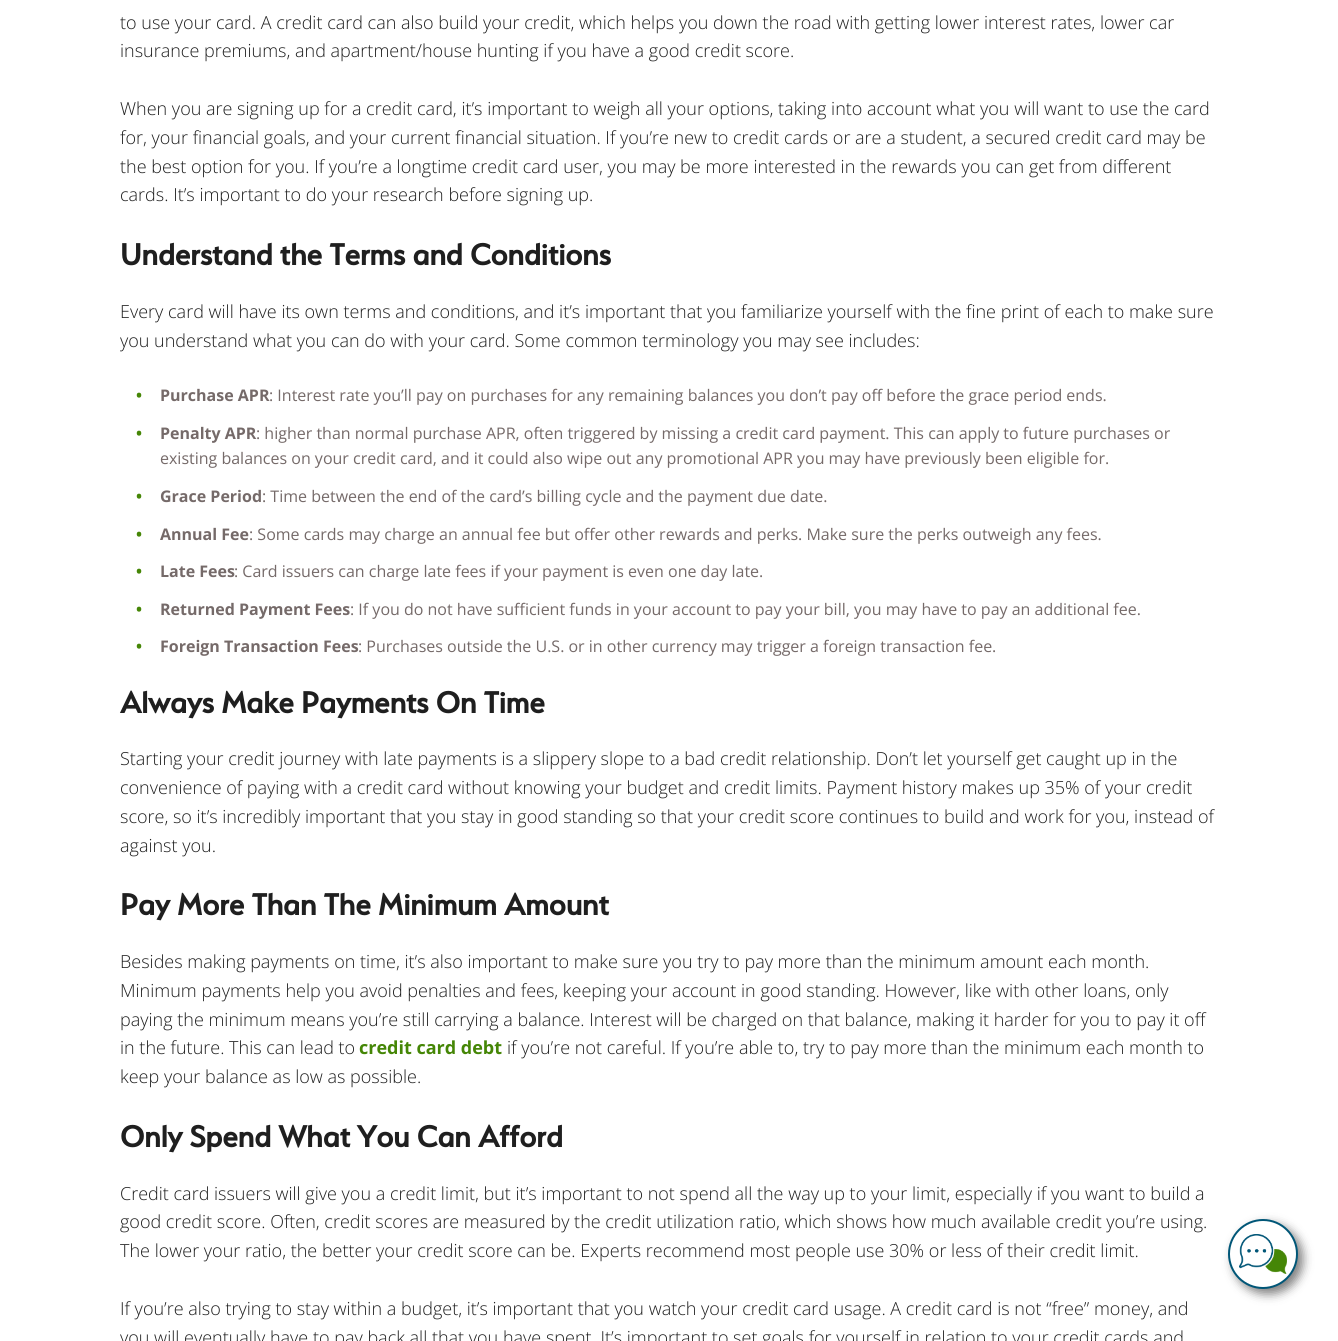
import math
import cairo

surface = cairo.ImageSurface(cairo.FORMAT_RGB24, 1338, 1341)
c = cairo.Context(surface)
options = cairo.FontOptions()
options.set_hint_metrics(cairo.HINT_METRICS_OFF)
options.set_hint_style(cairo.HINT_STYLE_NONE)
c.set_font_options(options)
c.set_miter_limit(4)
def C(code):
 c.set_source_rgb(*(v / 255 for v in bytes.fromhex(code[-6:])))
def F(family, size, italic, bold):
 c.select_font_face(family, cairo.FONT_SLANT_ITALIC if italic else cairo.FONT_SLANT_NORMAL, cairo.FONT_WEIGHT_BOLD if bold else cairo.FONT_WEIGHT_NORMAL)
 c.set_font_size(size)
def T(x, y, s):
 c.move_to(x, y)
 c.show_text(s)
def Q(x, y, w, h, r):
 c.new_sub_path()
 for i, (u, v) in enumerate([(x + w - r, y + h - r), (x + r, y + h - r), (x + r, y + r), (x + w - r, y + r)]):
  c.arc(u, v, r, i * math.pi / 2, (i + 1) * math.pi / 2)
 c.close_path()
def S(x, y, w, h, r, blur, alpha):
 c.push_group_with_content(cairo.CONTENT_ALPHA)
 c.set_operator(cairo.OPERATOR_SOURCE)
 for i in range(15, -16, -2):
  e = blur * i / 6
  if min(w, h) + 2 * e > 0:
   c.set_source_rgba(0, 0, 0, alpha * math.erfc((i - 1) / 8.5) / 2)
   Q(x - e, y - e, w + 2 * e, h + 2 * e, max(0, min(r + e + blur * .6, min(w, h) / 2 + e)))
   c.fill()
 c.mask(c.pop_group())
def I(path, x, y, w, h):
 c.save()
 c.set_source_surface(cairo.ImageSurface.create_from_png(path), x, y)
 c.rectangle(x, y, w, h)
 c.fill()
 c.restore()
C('ffffff')
c.paint()
F('Open Sans Light',18,0,0)
C('1f1f1f')
T(120,29,'to use your card. A credit card can also build your credit, which helps you down the road with getting lower interest rates, lower car')
T(120,57,'insurance premiums, and apartment/house hunting if you have a good credit score.')
T(120,115,'When you are signing up for a credit card, it’s important to weigh all your options, taking into account what you will want to use the card')
T(120,144,'for, your financial goals, and your current financial situation. If you’re new to credit cards or are a student, a secured credit card may be')
T(120,173,'the best option for you. If you’re a longtime credit card user, you may be more interested in the rewards you can get from different')
T(120,201,'cards. It’s important to do your research before signing up.')
F('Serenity',33.75,0,1)
T(120,265,'Understand the Terms and Conditions')
F('Open Sans Light',18,0,0)
T(120,318,'Every card will have its own terms and conditions, and it’s important that you familiarize yourself with the fine print of each to make sure')
T(120,347,'you understand what you can do with your card. Some common terminology you may see includes:')
F('Open Sans',16,0,1)
C('458606')
T(136,401,'•')
C('756a69')
T(160,401,'Purchase APR')
F('Open Sans',16,0,0)
T(269,401,': Interest rate you’ll pay on purchases for any remaining balances you don’t pay off before the grace period ends.')
F('Open Sans',16,0,1)
C('458606')
T(136,439,'•')
C('756a69')
T(160,439,'Penalty APR')
F('Open Sans',16,0,0)
T(256,439,': higher than normal purchase APR, often triggered by missing a credit card payment. This can apply to future purchases or')
T(160,464,'existing balances on your credit card, and it could also wipe out any promotional APR you may have previously been eligible for.')
F('Open Sans',16,0,1)
C('458606')
T(136,502,'•')
C('756a69')
T(160,502,'Grace Period')
F('Open Sans',16,0,0)
T(262,502,': Time between the end of the card’s billing cycle and the payment due date.')
F('Open Sans',16,0,1)
C('458606')
T(136,540,'•')
C('756a69')
T(160,540,'Annual Fee')
F('Open Sans',16,0,0)
T(249,540,': Some cards may charge an annual fee but offer other rewards and perks. Make sure the perks outweigh any fees.')
F('Open Sans',16,0,1)
C('458606')
T(136,577,'•')
C('756a69')
T(160,577,'Late Fees')
F('Open Sans',16,0,0)
T(234,577,': Card issuers can charge late fees if your payment is even one day late.')
F('Open Sans',16,0,1)
C('458606')
T(136,615,'•')
C('756a69')
T(160,615,'Returned Payment Fees')
F('Open Sans',16,0,0)
T(350,615,': If you do not have sufficient funds in your account to pay your bill, you may have to pay an additional fee.')
F('Open Sans',16,0,1)
C('458606')
T(136,652,'•')
C('756a69')
T(160,652,'Foreign Transaction Fees')
F('Open Sans',16,0,0)
T(358,652,': Purchases outside the U.S. or in other currency may trigger a foreign transaction fee.')
F('Serenity',33.75,0,1)
C('1f1f1f')
T(120,713,'Always Make Payments On Time')
F('Open Sans Light',18,0,0)
T(120,765,'Starting your credit journey with late payments is a slippery slope to a bad credit relationship. Don’t let yourself get caught up in the')
T(120,794,'convenience of paying with a credit card without knowing your budget and credit limits. Payment history makes up 35% of your credit')
T(120,823,'score, so it’s incredibly important that you stay in good standing so that your credit score continues to build and work for you, instead of')
T(120,852,'against you.')
F('Serenity',33.75,0,1)
T(120,915,'Pay More Than The Minimum Amount')
F('Open Sans Light',18,0,0)
T(120,968,'Besides making payments on time, it’s also important to make sure you try to pay more than the minimum amount each month.')
T(120,997,'Minimum payments help you avoid penalties and fees, keeping your account in good standing. However, like with other loans, only')
T(120,1026,'paying the minimum means you’re still carrying a balance. Interest will be charged on that balance, making it harder for you to pay it off')
T(120,1054,'in the future. This can lead to')
F('Open Sans',18,0,1)
C('458606')
T(359,1054,'credit card debt')
F('Open Sans Light',18,0,0)
C('1f1f1f')
T(507,1054,'if you’re not careful. If you’re able to, try to pay more than the minimum each month to')
T(120,1083,'keep your balance as low as possible.')
F('Serenity',33.75,0,1)
T(120,1147,'Only Spend What You Can Afford')
F('Open Sans Light',18,0,0)
T(120,1200,'Credit card issuers will give you a credit limit, but it’s important to not spend all the way up to your limit, especially if you want to build a')
T(120,1228,'good credit score. Often, credit scores are measured by the credit utilization ratio, which shows how much available credit you’re using.')
T(120,1257,'The lower your ratio, the better your credit score can be. Experts recommend most people use 30% or less of their credit limit.')
T(120,1315,'If you’re also trying to stay within a budget, it’s important that you watch your credit card usage. A credit card is not “free” money, and')
T(120,1344,'you will eventually have to pay back all that you have spent. It’s important to set goals for yourself in relation to your credit cards and')
C('000000')
S(1233,1224,70,70,35,5,.5)
C('ffffff')
c.arc(1263,1254,34,0,2 * math.pi)
c.fill_preserve()
C('005677')
c.stroke()
I('1.png',1239,1234,48,40)
surface.write_to_png('o.png')
